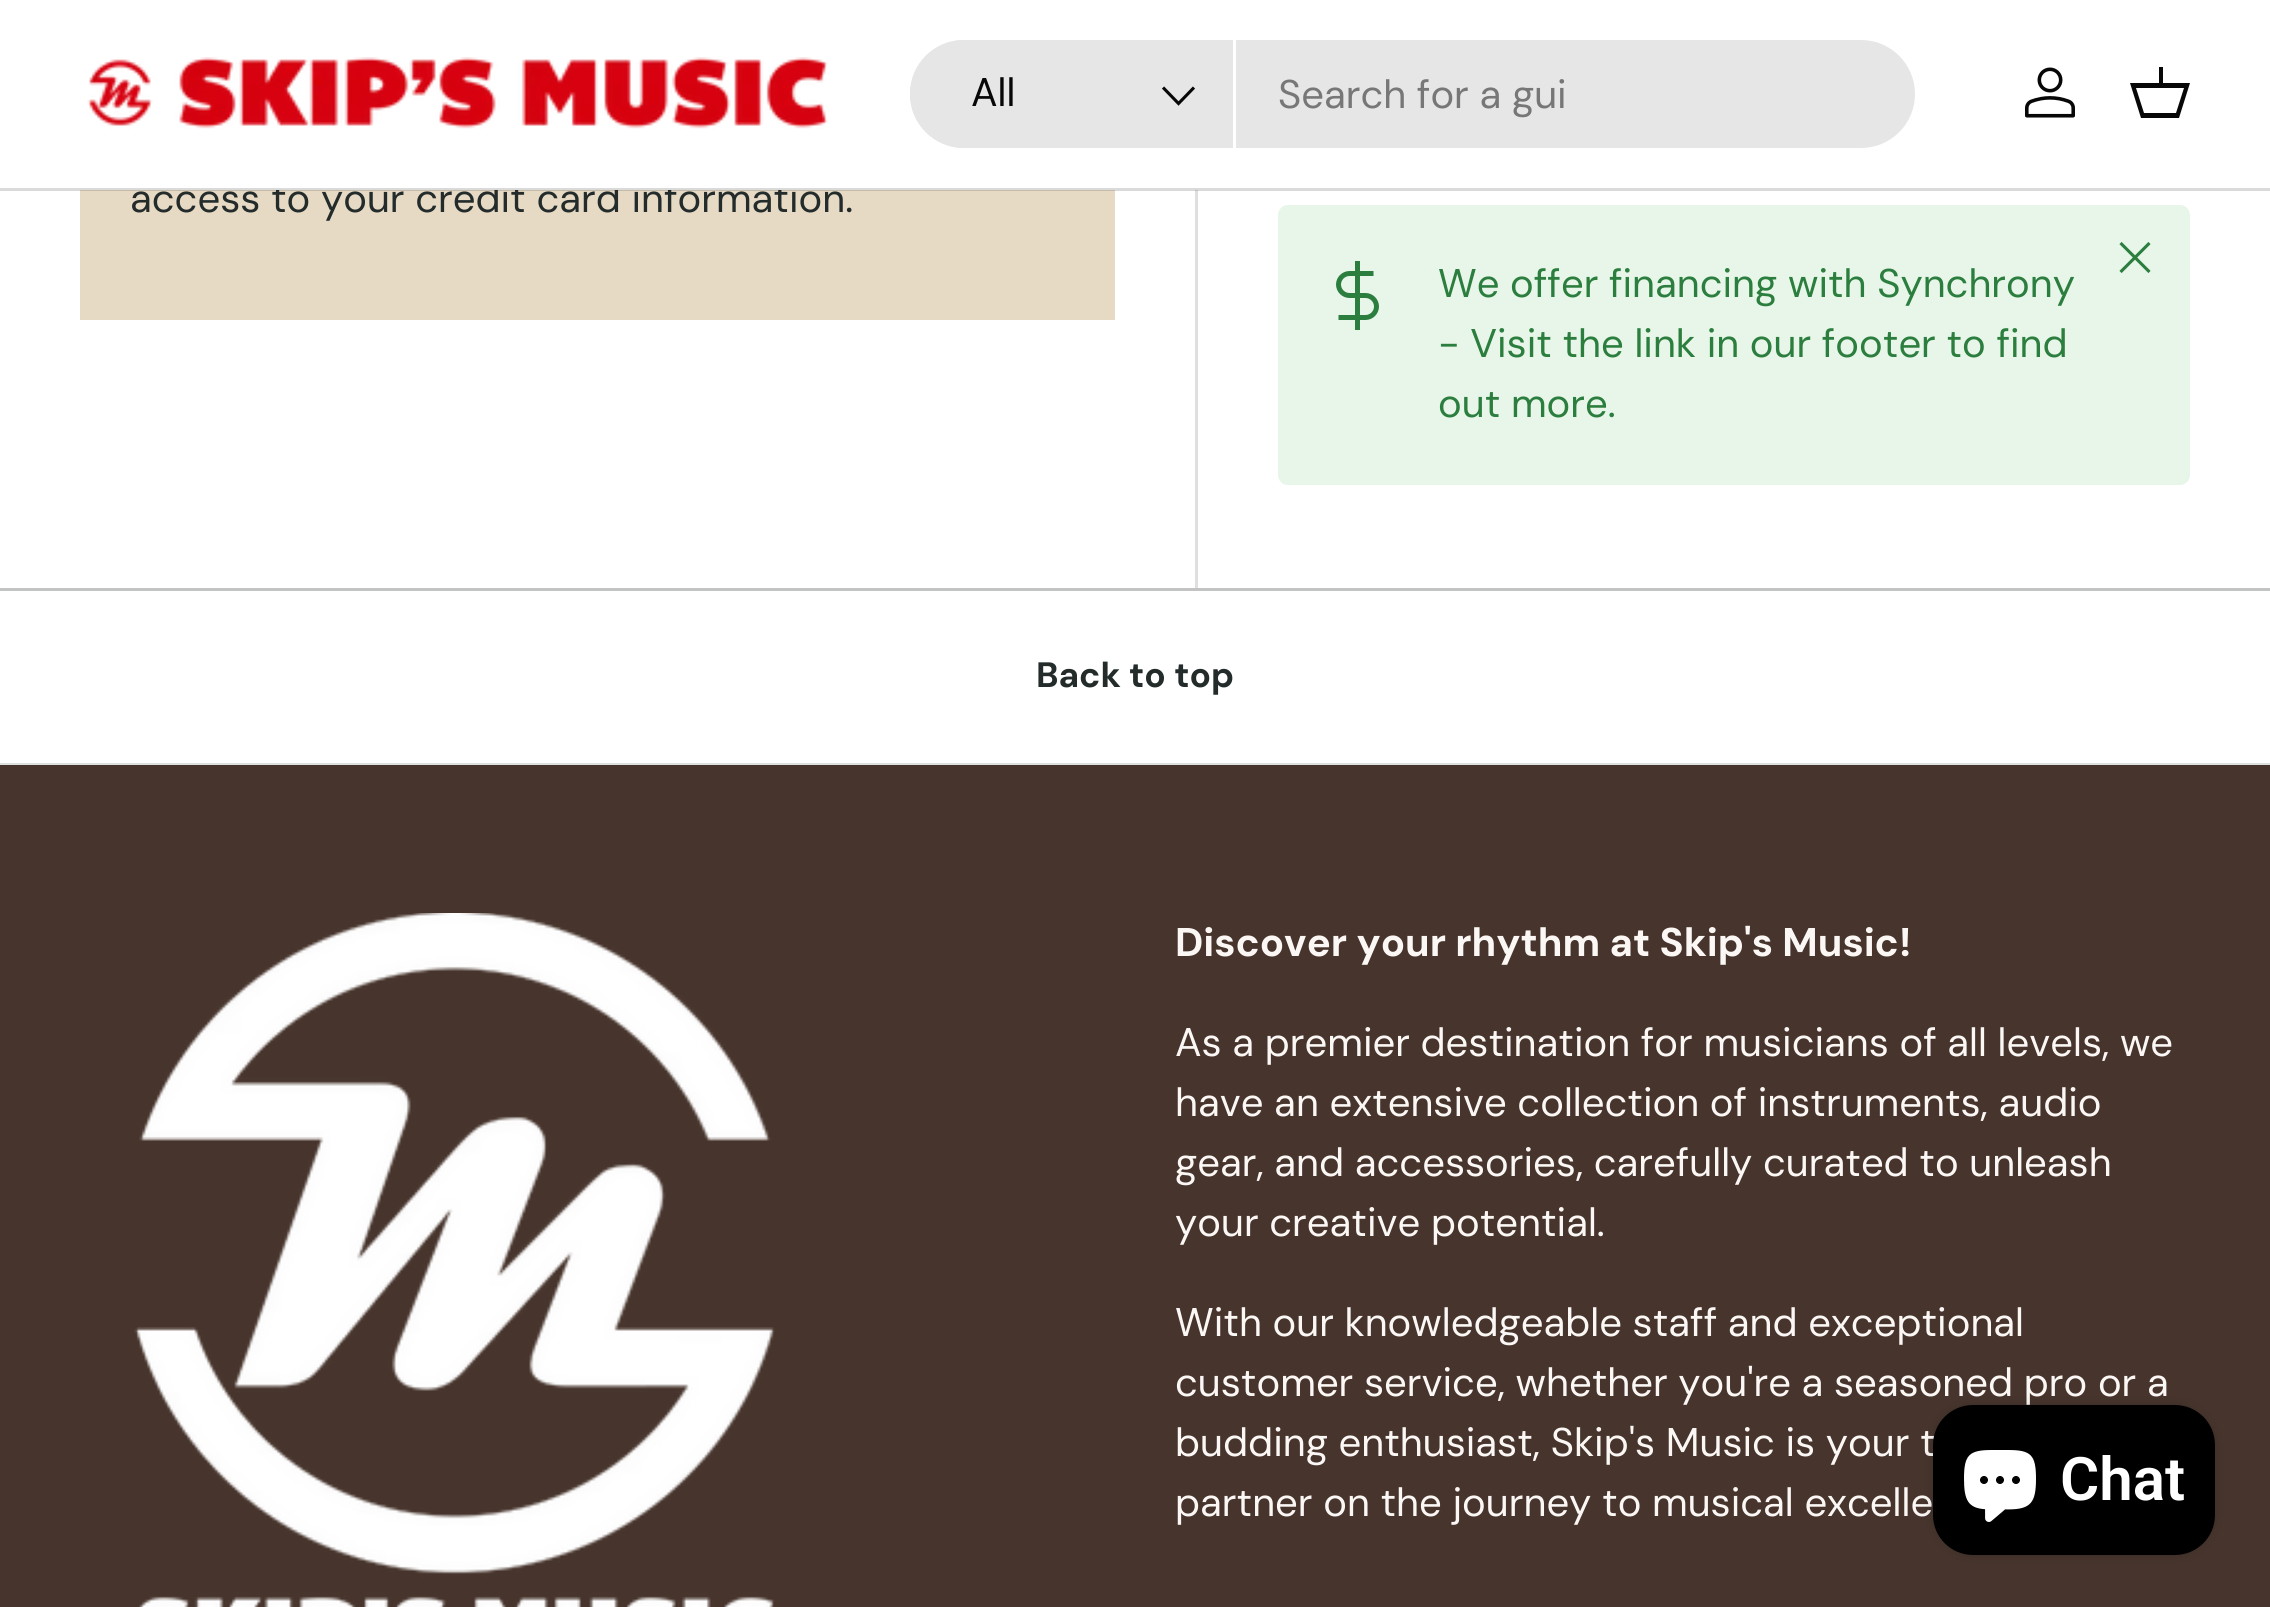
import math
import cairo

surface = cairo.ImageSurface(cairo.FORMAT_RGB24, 2270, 1607)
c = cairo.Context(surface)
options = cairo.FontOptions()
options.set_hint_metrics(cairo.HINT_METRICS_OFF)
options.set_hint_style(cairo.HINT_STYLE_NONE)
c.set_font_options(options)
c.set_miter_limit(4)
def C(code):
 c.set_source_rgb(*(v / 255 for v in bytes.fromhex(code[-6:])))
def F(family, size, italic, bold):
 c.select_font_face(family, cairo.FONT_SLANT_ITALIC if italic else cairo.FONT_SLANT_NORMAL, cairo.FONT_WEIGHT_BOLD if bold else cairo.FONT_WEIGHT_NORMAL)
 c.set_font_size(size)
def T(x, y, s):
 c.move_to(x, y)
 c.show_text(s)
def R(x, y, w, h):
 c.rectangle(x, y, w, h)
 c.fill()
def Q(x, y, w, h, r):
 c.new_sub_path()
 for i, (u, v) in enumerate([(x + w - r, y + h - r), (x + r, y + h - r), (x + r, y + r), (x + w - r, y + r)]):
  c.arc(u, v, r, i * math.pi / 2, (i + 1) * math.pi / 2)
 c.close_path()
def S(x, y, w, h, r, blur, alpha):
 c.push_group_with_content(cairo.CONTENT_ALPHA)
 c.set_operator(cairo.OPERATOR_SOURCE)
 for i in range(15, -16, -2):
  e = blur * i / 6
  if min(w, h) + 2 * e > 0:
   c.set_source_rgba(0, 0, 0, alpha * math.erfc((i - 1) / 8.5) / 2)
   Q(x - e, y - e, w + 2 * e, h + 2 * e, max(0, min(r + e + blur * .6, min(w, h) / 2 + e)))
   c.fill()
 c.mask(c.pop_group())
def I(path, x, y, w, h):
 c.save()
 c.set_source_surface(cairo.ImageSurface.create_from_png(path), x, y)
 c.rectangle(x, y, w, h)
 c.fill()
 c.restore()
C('ffffff')
c.paint()
C('dedfdf')
R(0,763,2270,2)
C('e7dac5')
R(80,190,1035,130)
F('DM Sans',40,0,0)
C('232b2b')
T(130,212,'access to your credit card information.')
C('ffffff')
R(276,183,521,7)
C('dedfdf')
R(1195,190,3,400)
c.set_source_rgba(0.027,0.027,0.027,0.15)
R(0,188,2270,3)
I('1.png',87,57,741,72)
C('e6e6e6')
Q(910,40,1005,108,54)
c.fill()
c.new_path()
c.move_to(964,40)
c.line_to(1235,40)
c.line_to(1235,148)
c.line_to(964,148)
c.curve_to(934,148,910,124,910,94)
c.curve_to(910,64,934,40,964,40)
c.close_path()
c.fill()
C('ffffff')
R(1233,40,3,108)
C('070707')
T(971,106,'All')
c.new_path()
c.move_to(1194,87.5)
c.line_to(1178.5,103.5)
c.line_to(1163,87.5)
c.set_line_width(3.1)
c.stroke()
C('777777')
T(1278,108,'Search for a gui')
I('2.png',2025,67,50,51)
C('070707')
c.new_path()
c.move_to(2159,83)
c.line_to(2159,67)
c.line_to(2163,67)
c.line_to(2163,83)
c.line_to(2190,83)
c.line_to(2179,118)
c.line_to(2141,118)
c.line_to(2130,83)
c.close_path()
c.move_to(2136,88)
c.line_to(2144,113)
c.line_to(2176,113)
c.line_to(2184,88)
c.close_path()
c.fill()
C('e8f6ea')
Q(1278,205,912,280,10)
c.fill()
c.new_path()
c.move_to(2120.5,272)
c.line_to(2149.5,243)
c.move_to(2120.5,243)
c.line_to(2149.5,272)
C('2c7e3f')
c.set_line_join(cairo.LINE_JOIN_ROUND)
c.stroke()
R(1355,261,5,69)
c.new_path()
c.move_to(1373.5,273.5)
c.line_to(1349.5,273.5)
c.curve_to(1343.5,273.5,1338.5,278.5,1338.5,284.5)
c.curve_to(1338.5,290.5,1343.5,295.5,1349.5,295.5)
c.line_to(1365.5,295.5)
c.curve_to(1371.5,295.5,1376.5,300.5,1376.5,306.5)
c.curve_to(1376.5,312.5,1371.5,317.5,1365.5,317.5)
c.line_to(1338.5,317.5)
c.set_line_width(5)
c.set_line_join(cairo.LINE_JOIN_MITER)
c.stroke()
T(1438,297,'We offer financing with Synchrony')
T(1438,357,'- Visit the link in our footer to find')
T(1438,417,'out more.')
C('c2c4c4')
R(0,588,2270,3)
F('DM Sans',35.25,0,1)
C('232b2b')
T(1036,687,'Back to top')
C('47352d')
R(0,766,2270,841)
C('42342d')
R(0,765,2270,1)
I('3.png',134,913,641,694)
F('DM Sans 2',40,0,1)
C('fbf7f5')
T(1175,956,'Discover your rhythm at Skip\'s Music!')
F('DM Sans',40,0,0)
T(1175,1056,'As a premier destination for musicians of all levels, we')
T(1175,1116,'have an extensive collection of instruments, audio')
T(1175,1176,'gear, and accessories, carefully curated to unleash')
T(1175,1236,'your creative potential.')
T(1175,1336,'With our knowledgeable staff and exceptional')
T(1175,1396,'customer service, whether you\'re a seasoned pro or a')
T(1175,1456,'budding enthusiast, Skip\'s Music is your t')
T(1175,1516,'partner on the journey to musical excelle')
C('000000')
S(1933,1405,282,150,40,6,.15)
C('000000')
Q(1933,1405,282,150,40)
c.fill()
I('4.png',1964,1450,72,72)
F('Roboto SemiBold',60,0,0)
C('ffffff')
T(2060,1500,'Chat')
surface.write_to_png('o.png')
